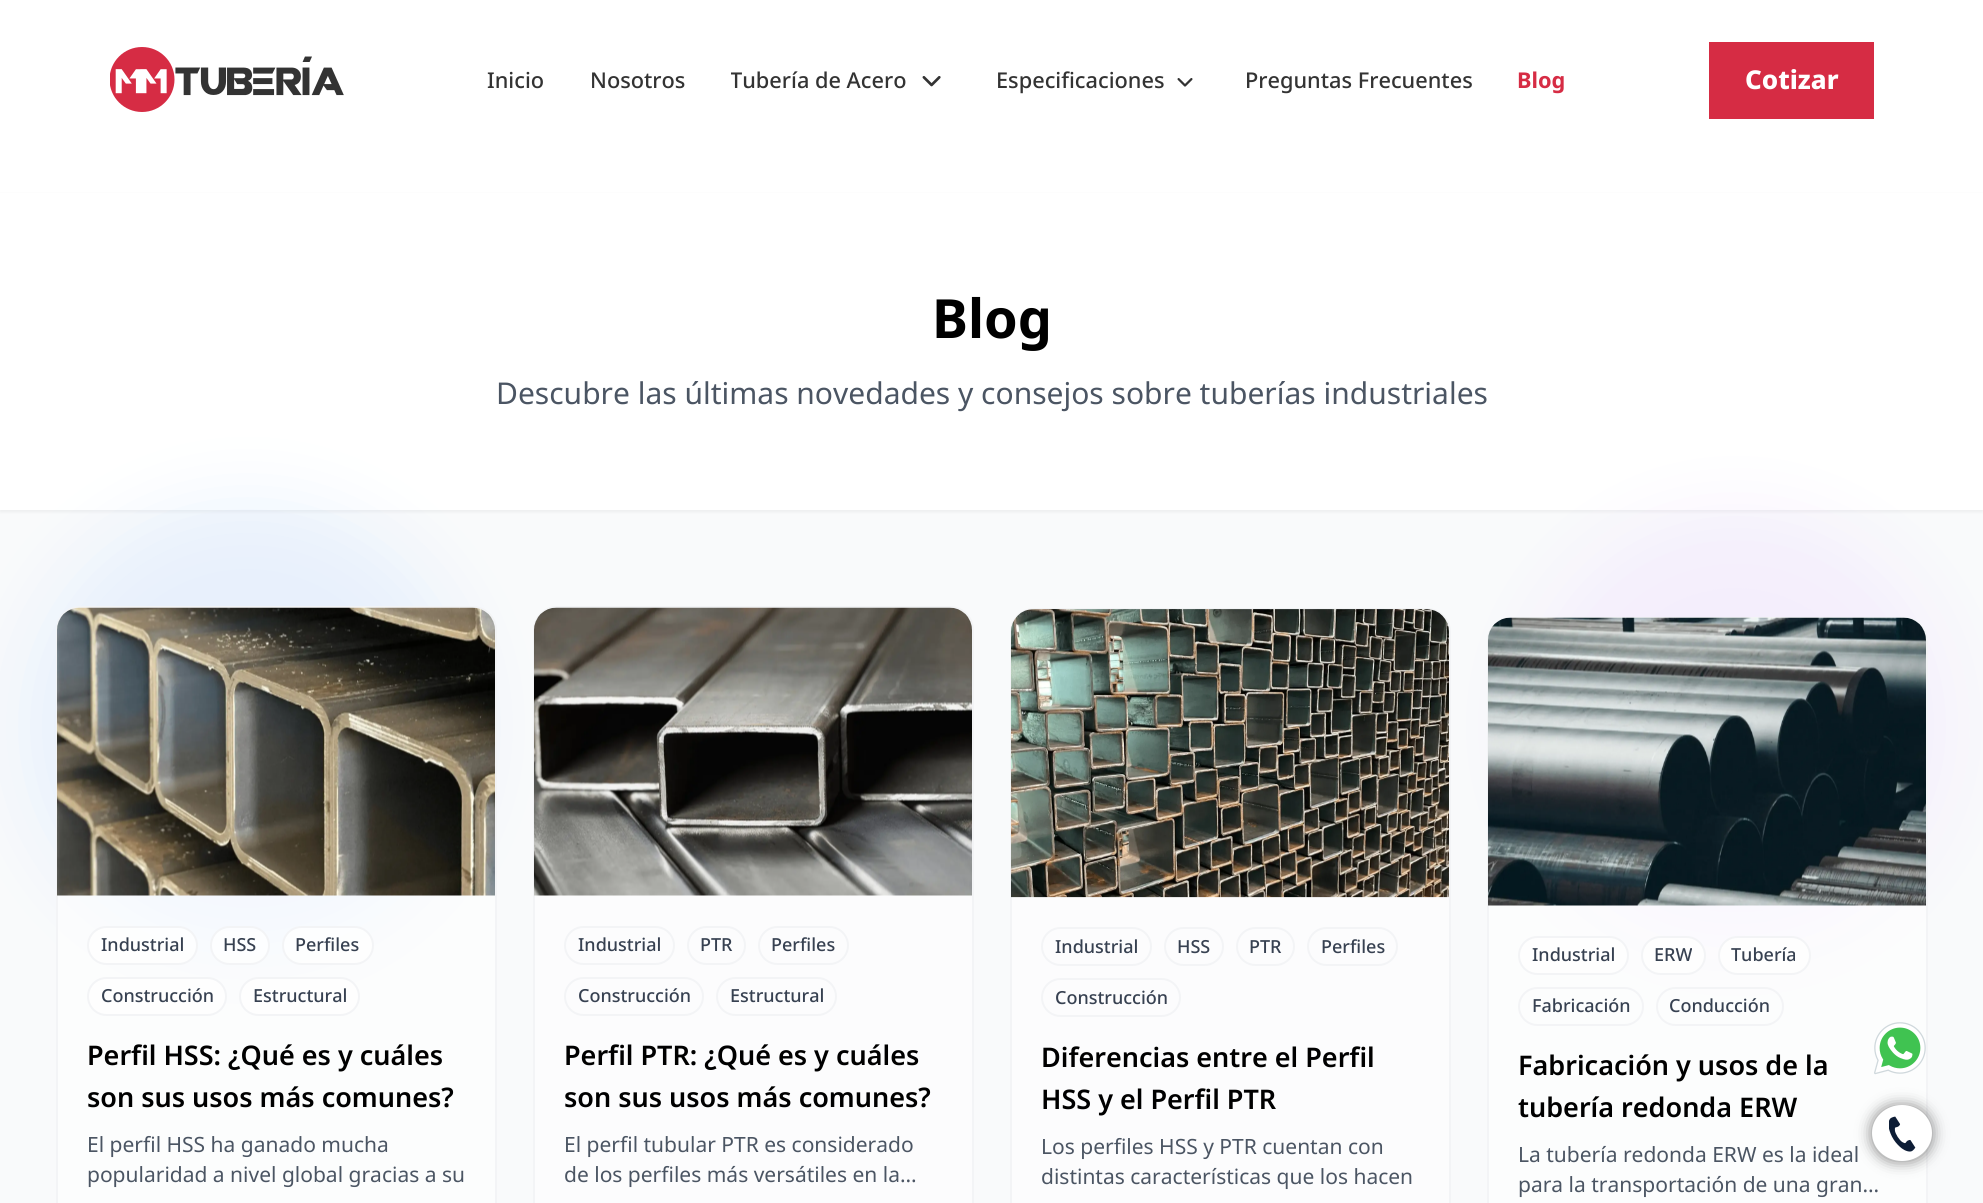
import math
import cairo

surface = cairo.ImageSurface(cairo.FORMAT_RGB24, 1983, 1203)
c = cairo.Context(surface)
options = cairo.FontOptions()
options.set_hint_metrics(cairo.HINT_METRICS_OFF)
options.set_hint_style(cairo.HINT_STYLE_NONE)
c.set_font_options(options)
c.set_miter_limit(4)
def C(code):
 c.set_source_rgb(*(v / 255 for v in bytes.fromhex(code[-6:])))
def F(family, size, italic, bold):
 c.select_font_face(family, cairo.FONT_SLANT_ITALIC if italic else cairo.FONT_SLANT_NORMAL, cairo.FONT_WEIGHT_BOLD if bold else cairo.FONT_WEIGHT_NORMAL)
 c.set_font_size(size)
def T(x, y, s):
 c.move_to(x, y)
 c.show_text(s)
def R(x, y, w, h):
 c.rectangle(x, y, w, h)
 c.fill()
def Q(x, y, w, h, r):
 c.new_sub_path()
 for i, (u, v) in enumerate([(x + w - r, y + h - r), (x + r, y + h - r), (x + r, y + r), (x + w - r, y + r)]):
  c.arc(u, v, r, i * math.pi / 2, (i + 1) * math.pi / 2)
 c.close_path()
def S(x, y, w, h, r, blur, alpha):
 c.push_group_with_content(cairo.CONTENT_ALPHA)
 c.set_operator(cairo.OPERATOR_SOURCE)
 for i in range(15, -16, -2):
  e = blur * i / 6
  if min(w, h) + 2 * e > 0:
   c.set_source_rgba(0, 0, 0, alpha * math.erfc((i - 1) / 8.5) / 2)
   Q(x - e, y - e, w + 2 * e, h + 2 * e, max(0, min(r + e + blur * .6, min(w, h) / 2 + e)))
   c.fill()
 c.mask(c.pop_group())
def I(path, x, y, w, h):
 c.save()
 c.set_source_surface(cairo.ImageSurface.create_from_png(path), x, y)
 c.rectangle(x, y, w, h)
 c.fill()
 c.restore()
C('ffffff')
c.paint()
I('1.png',110,47,234,65)
F('Noto Sans Medium',21.75,0,0)
C('333333')
T(487,88,'Inicio')
T(590,88,'Nosotros')
c.save()
c.rectangle(731,62,219,37)
c.clip()
T(730,88,'Tubería de Acero')
c.restore()
I('2.png',922,76,19,11)
T(996,88,'Especificaciones')
I('3.png',1177,78,16,9)
T(1245,88,'Preguntas Frecuentes')
F('Noto Sans',21.75,0,1)
C('d62c44')
T(1517,88,'Blog')
R(1709,42,165,77)
F('Noto Sans ExtraBold',26,0,0)
C('ffffff')
T(1745,89,'Cotizar')
C('f9fafb')
R(0,510,1983,693)
C('000000')
S(0,194,1983,318,0,1.5,.05)
C('ffffff')
R(0,193,1983,317)
F('Noto Sans',54,0,1)
C('000000')
T(932,338,'Blog')
F('Noto Sans',30,0,0)
C('4b5563')
T(496,404,'Descubre las últimas novedades y consejos sobre tuberías industriales')
C('bfdbfe')
S(24,503,447,447,223.5,36,.3)
C('e9d5ff')
S(1520,510,432,432,216,36,.3)
c.set_source_rgba(1,1,1,0.5)
Q(57,607,439,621,23)
c.fill_preserve()
C('f3f4f6')
c.stroke()
I('4.png',57,607,438,289)
c.set_source_rgba(1,1,1,0.7)
Q(88,927,109,37,18.5)
c.fill_preserve()
C('f3f4f6')
c.stroke()
F('Noto Sans Medium',18,0,0)
C('374151')
T(101,951,'Industrial')
c.set_source_rgba(1,1,1,0.7)
Q(211,927,58,37,18.5)
c.fill_preserve()
C('f3f4f6')
c.stroke()
C('374151')
T(223,951,'HSS')
c.set_source_rgba(1,1,1,0.7)
Q(283,927,90,37,18.5)
c.fill_preserve()
C('f3f4f6')
c.stroke()
C('374151')
T(295,951,'Perfiles')
C('fefefe')
Q(88,978,138,37,18.5)
c.fill_preserve()
C('f3f4f6')
c.stroke()
C('374151')
T(101,1002,'Construcción')
C('fefefe')
Q(240,978,119,37,18.5)
c.fill_preserve()
C('f3f4f6')
c.stroke()
C('374151')
T(253,1002,'Estructural')
F('Noto Sans SemiBold',27,0,0)
C('000000')
T(87,1065,'Perfil HSS: ¿Qué es y cuáles')
T(87,1107,'son sus usos más comunes?')
F('Noto Sans',21,0,0)
C('4b5563')
T(87,1152,'El perfil HSS ha ganado mucha')
T(87,1182,'popularidad a nivel global gracias a su')
C('fcfcfd')
Q(534,607,439,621,23)
c.fill_preserve()
C('f3f4f6')
c.stroke()
I('5.png',534,607,438,289)
Q(565,927,109,37,18.5)
c.stroke()
F('Noto Sans Medium',18,0,0)
C('374151')
T(578,951,'Industrial')
Q(688,927,57,37,18.5)
C('f3f4f6')
c.stroke()
C('374151')
T(700,951,'PTR')
Q(759,927,89,37,18.5)
C('f3f4f6')
c.stroke()
C('374151')
T(771,951,'Perfiles')
Q(565,978,138,37,18.5)
C('f3f4f6')
c.stroke()
C('374151')
T(578,1002,'Construcción')
Q(717,978,119,37,18.5)
C('f3f4f6')
c.stroke()
C('374151')
T(730,1002,'Estructural')
F('Noto Sans SemiBold',27,0,0)
C('000000')
T(564,1065,'Perfil PTR: ¿Qué es y cuáles')
T(564,1107,'son sus usos más comunes?')
F('Noto Sans',21,0,0)
C('4b5563')
T(564,1152,'El perfil tubular PTR es considerado')
T(564,1182,'de los perfiles más versátiles en la…')
C('fcfcfd')
Q(1011,609,439,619,23)
c.fill_preserve()
C('f3f4f6')
c.stroke()
I('6.png',1011,609,438,289)
Q(1042,928,109,37,18.5)
c.stroke()
F('Noto Sans Medium',18,0,0)
C('374151')
T(1055,953,'Industrial')
Q(1165,928,58,37,18.5)
C('f3f4f6')
c.stroke()
C('374151')
T(1177,953,'HSS')
Q(1237,928,57,37,18.5)
C('f3f4f6')
c.stroke()
C('374151')
T(1249,953,'PTR')
Q(1308,928,89,37,18.5)
C('f3f4f6')
c.stroke()
C('374151')
T(1321,953,'Perfiles')
Q(1042,979,138,37,18.5)
C('f3f4f6')
c.stroke()
C('374151')
T(1055,1004,'Construcción')
F('Noto Sans SemiBold',27,0,0)
C('000000')
T(1041,1067,'Diferencias entre el Perfil')
T(1041,1109,'HSS y el Perfil PTR')
F('Noto Sans',21,0,0)
C('4b5563')
T(1041,1154,'Los perfiles HSS y PTR cuentan con')
T(1041,1184,'distintas características que los hacen')
c.set_source_rgba(1,1,1,0.5)
Q(1488,618,439,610,23)
c.fill_preserve()
C('f3f4f6')
c.stroke()
I('7.png',1488,617,438,289)
C('fefefe')
Q(1519,937,109,37,18.5)
c.fill_preserve()
C('f3f4f6')
c.stroke()
F('Noto Sans Medium',18,0,0)
C('374151')
T(1532,961,'Industrial')
C('fefefe')
Q(1642,937,63,37,18.5)
c.fill_preserve()
C('f3f4f6')
c.stroke()
C('374151')
T(1654,961,'ERW')
C('fefefe')
Q(1719,937,91,37,18.5)
c.fill_preserve()
C('f3f4f6')
c.stroke()
C('374151')
T(1731,961,'Tubería')
Q(1519,988,124,37,18.5)
C('f3f4f6')
c.stroke()
C('374151')
T(1532,1012,'Fabricación')
Q(1657,988,126,37,18.5)
C('f3f4f6')
c.stroke()
C('374151')
T(1669,1012,'Conducción')
F('Noto Sans SemiBold',27,0,0)
C('000000')
T(1518,1075,'Fabricación y usos de la')
T(1518,1117,'tubería redonda ERW')
F('Noto Sans',21,0,0)
C('4b5563')
T(1518,1162,'La tubería redonda ERW es la ideal')
T(1518,1192,'para la transportación de una gran…')
I('8.png',1874,1022,52,53)
C('000000')
S(1872,1106,60,55,27.5,7.5,.5)
C('ffffff')
c.new_path()
c.move_to(1902,1105)
c.curve_to(1918.5,1105,1932,1117.5,1932,1133)
c.curve_to(1932,1148.5,1918.5,1161,1902,1161)
c.curve_to(1885.5,1161,1872,1148.5,1872,1133)
c.curve_to(1872,1117.5,1885.5,1105,1902,1105)
c.close_path()
c.fill()
I('9.png',1889,1116,27,36)
surface.write_to_png('o.png')
